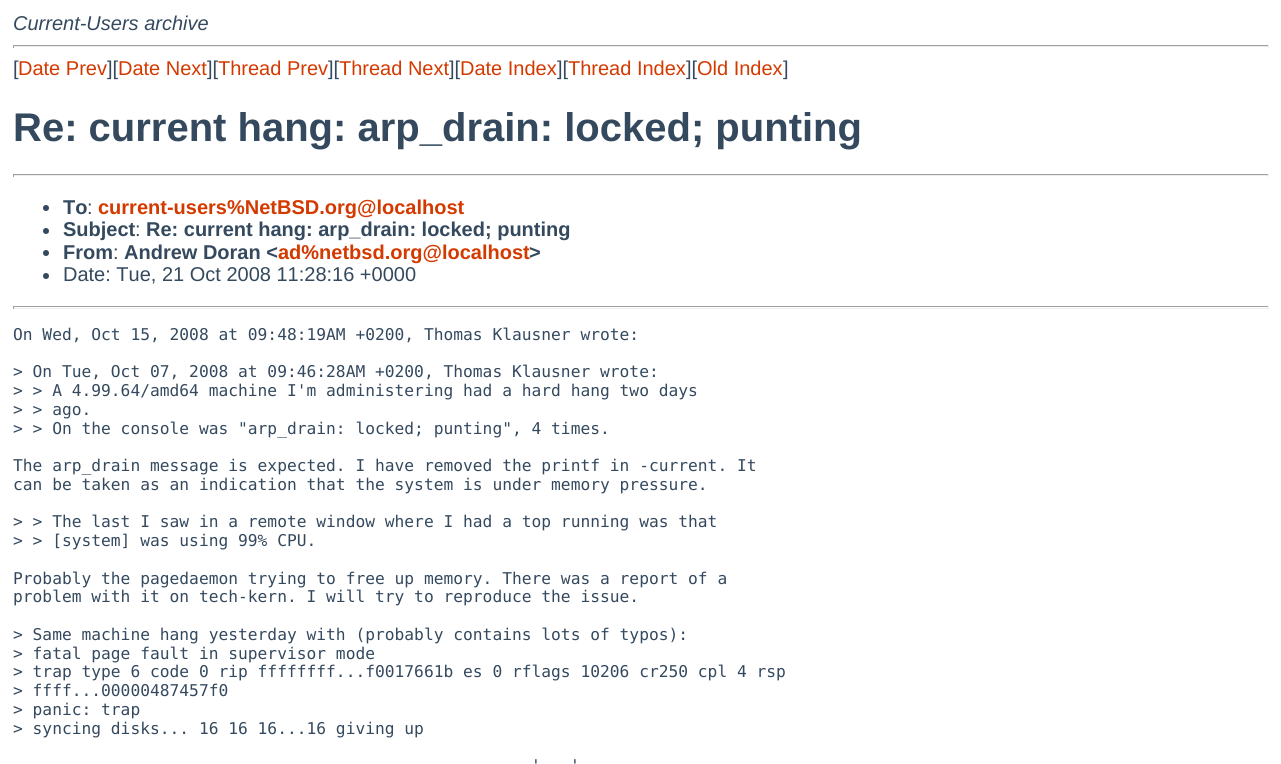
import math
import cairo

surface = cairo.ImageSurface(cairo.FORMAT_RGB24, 1281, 764)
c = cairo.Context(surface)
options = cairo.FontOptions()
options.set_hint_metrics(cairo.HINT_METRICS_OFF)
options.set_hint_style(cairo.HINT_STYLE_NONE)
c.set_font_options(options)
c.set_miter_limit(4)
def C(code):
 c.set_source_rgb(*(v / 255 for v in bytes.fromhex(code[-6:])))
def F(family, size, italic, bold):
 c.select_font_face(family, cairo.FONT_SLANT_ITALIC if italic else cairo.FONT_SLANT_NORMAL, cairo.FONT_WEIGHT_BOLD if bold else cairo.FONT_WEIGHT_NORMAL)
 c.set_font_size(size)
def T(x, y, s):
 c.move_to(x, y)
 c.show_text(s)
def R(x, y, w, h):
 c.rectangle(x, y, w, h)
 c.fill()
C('ffffff')
c.paint()
F('Liberation Sans',20,1,0)
C('34495e')
T(13,30,'Current-Users archive')
C('9f9f9f')
R(13,45,1256,1)
C('eeeeee')
R(1268,45,1,3)
R(13,46,1256,1)
C('9f9f9f')
R(13,45,1,3)
F('Liberation Sans',20,0,0)
C('34495e')
T(13,75,'[')
C('d43900')
T(18,75,'Date Prev')
C('34495e')
T(107,75,'][')
C('d43900')
T(118,75,'Date Next')
C('34495e')
T(207,75,'][')
C('d43900')
T(218,75,'Thread Prev')
C('34495e')
T(328,75,'][')
C('d43900')
T(339,75,'Thread Next')
C('34495e')
T(449,75,'][')
C('d43900')
T(460,75,'Date Index')
C('34495e')
T(557,75,'][')
C('d43900')
T(568,75,'Thread Index')
C('34495e')
T(686,75,'][')
C('d43900')
T(697,75,'Old Index')
C('34495e')
T(783,75,']')
F('Liberation Sans',40,0,1)
T(13,141,'Re: current hang: arp_drain: locked; punting')
C('9f9f9f')
R(13,174,1256,1)
C('eeeeee')
R(1268,174,1,3)
R(13,175,1256,1)
C('9f9f9f')
R(13,174,1,3)
C('34495e')
c.new_path()
c.arc(46,208,3,0,2 * math.pi)
c.fill()
F('Liberation Sans',20,0,1)
T(63,214,'To')
F('Liberation Sans',20,0,0)
T(87,214,':')
F('Liberation Sans',20,0,1)
C('d43900')
T(98,214,'current-users%NetBSD.org@localhost')
C('34495e')
c.new_path()
c.arc(46,231,3,0,2 * math.pi)
c.fill()
T(63,236,'Subject')
F('Liberation Sans',20,0,0)
T(135,236,':')
F('Liberation Sans',20,0,1)
T(146,236,'Re: current hang: arp_drain: locked; punting')
c.new_path()
c.arc(46,253,3,0,2 * math.pi)
c.fill()
T(63,259,'From')
F('Liberation Sans',20,0,0)
T(113,259,':')
F('Liberation Sans',20,0,1)
T(124,259,'Andrew Doran <')
C('d43900')
T(278,259,'ad%netbsd.org@localhost')
C('34495e')
T(529,259,'>')
c.new_path()
c.arc(46,276,3,0,2 * math.pi)
c.fill()
F('Liberation Sans',20,0,0)
T(63,281,'Date: Tue, 21 Oct 2008 11:28:16 +0000')
C('9f9f9f')
R(13,306,1256,1)
C('eeeeee')
R(1268,306,1,3)
R(13,308,1256,1)
C('9f9f9f')
R(13,306,1,3)
F('DejaVu Sans Mono',16.25,0,0)
C('34495e')
T(13,340,'On Wed, Oct 15, 2008 at 09:48:19AM +0200, Thomas Klausner wrote:')
T(13,377,'> On Tue, Oct 07, 2008 at 09:46:28AM +0200, Thomas Klausner wrote:')
T(13,396,'> > A 4.99.64/amd64 machine I\'m administering had a hard hang two days')
T(13,415,'> > ago.')
T(13,434,'> > On the console was "arp_drain: locked; punting", 4 times.')
T(13,471,'The arp_drain message is expected. I have removed the printf in -current. It')
T(13,490,'can be taken as an indication that the system is under memory pressure.')
T(13,527,'> > The last I saw in a remote window where I had a top running was that')
T(13,546,'> > [system] was using 99% CPU.')
T(13,584,'Probably the pagedaemon trying to free up memory. There was a report of a')
T(13,602,'problem with it on tech-kern. I will try to reproduce the issue.')
T(13,640,'> Same machine hang yesterday with (probably contains lots of typos):')
T(13,659,'> fatal page fault in supervisor mode')
T(13,677,'> trap type 6 code 0 rip ffffffff...f0017661b es 0 rflags 10206 cr250 cpl 4 rsp')
T(13,696,'> ffff...00000487457f0')
T(13,715,'> panic: trap')
T(13,734,'> syncing disks... 16 16 16...16 giving up')
T(531,771,'\'')
T(570,771,'\'')
surface.write_to_png('o.png')
